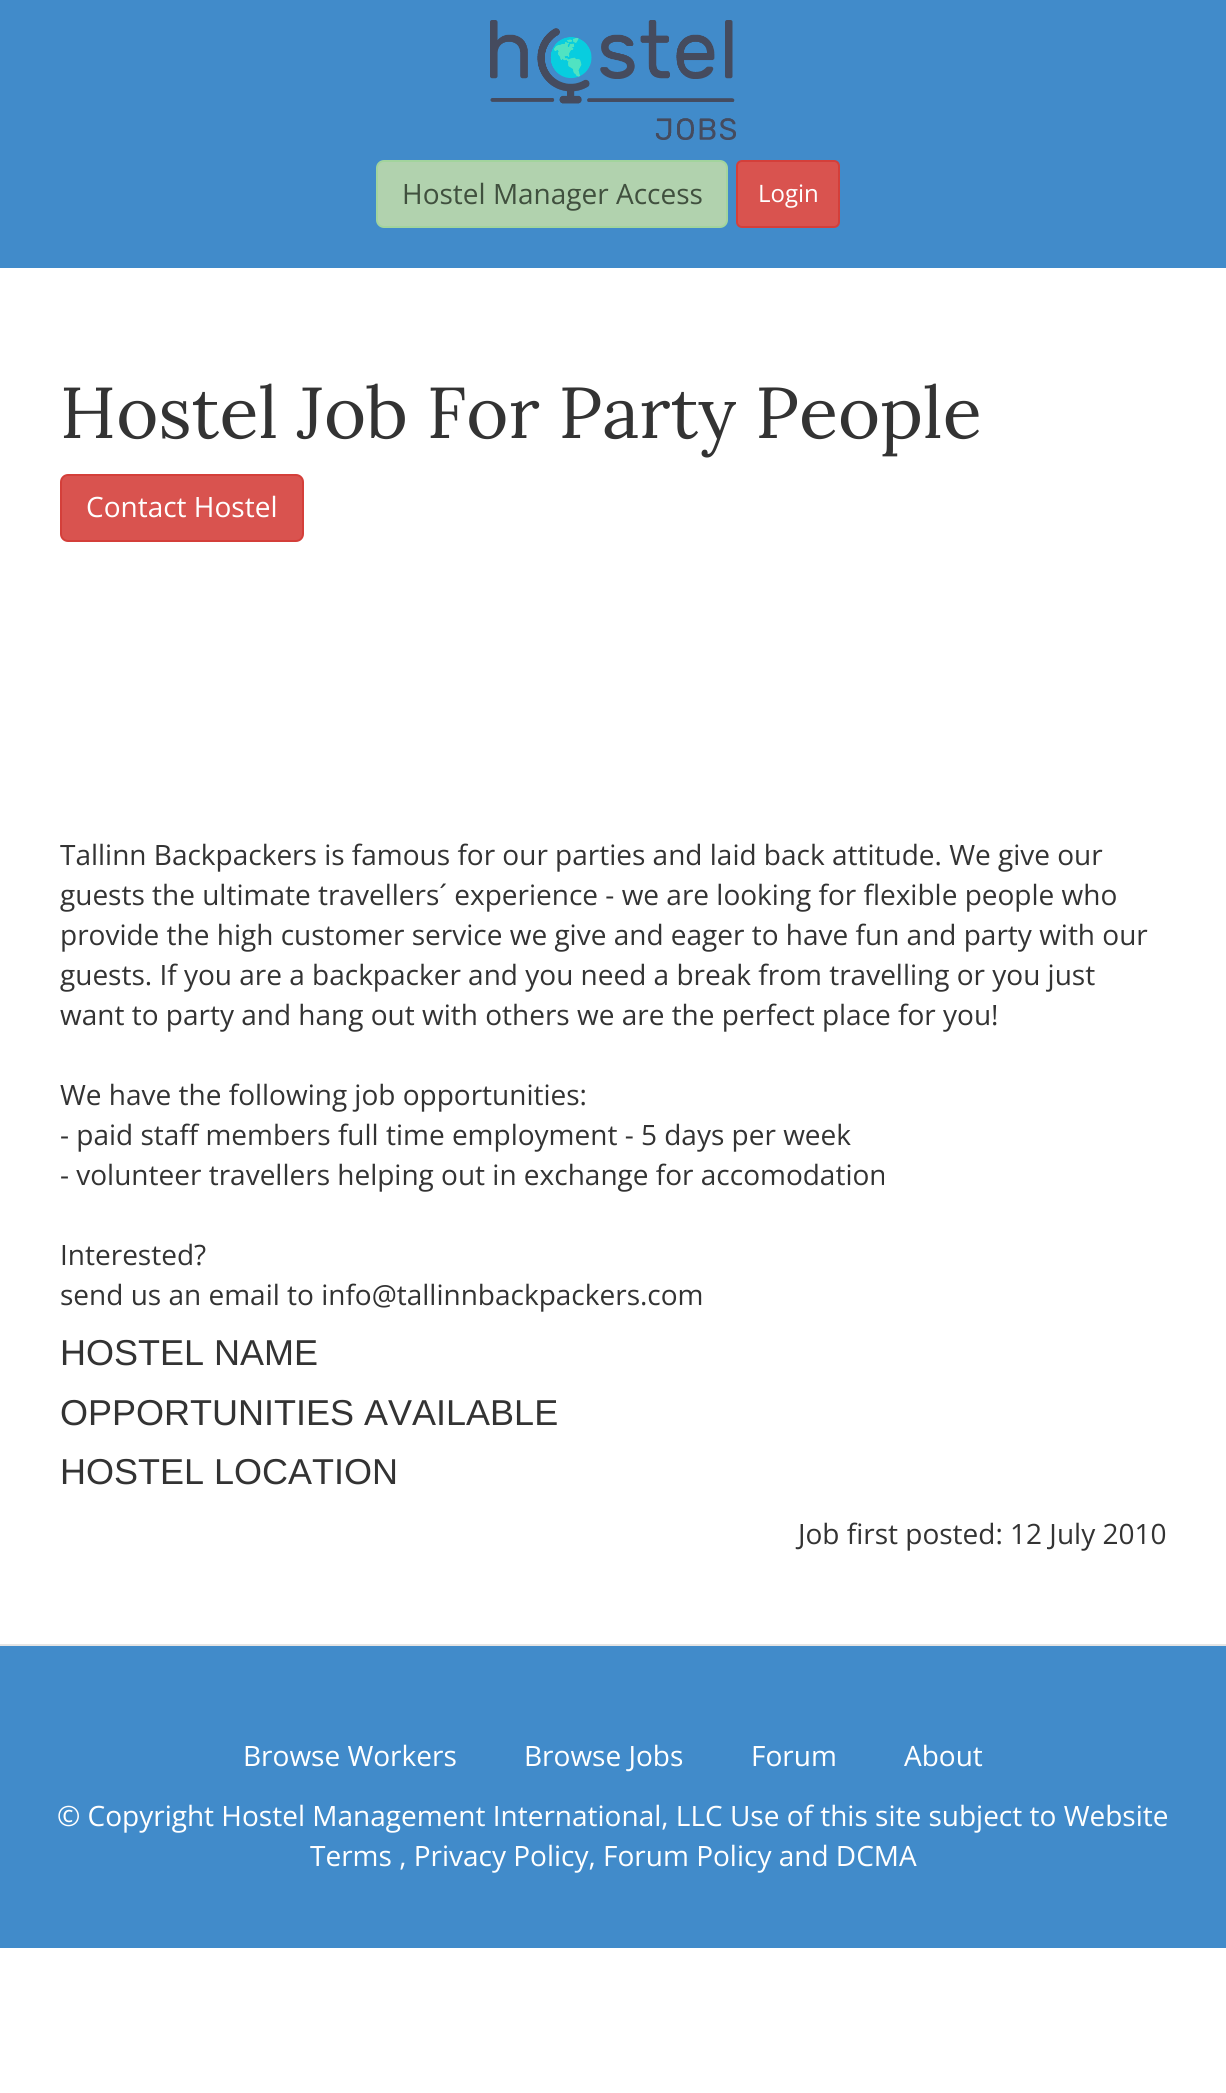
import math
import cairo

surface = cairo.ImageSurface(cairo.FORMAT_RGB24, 1226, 2093)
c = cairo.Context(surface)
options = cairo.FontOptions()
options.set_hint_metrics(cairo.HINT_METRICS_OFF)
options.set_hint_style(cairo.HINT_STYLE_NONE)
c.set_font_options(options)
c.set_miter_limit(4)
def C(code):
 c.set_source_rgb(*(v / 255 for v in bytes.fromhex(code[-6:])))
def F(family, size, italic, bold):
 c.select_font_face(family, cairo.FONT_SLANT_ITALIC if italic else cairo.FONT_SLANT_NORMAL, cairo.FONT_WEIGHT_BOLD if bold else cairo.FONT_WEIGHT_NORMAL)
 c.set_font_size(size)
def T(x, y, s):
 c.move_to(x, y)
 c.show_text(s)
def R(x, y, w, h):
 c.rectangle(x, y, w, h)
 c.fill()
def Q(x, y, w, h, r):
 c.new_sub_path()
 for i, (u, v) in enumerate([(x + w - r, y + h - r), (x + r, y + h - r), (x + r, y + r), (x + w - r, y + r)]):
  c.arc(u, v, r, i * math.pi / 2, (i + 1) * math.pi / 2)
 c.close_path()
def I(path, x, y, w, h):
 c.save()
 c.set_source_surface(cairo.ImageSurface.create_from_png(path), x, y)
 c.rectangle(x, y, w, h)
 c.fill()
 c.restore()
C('ffffff')
c.paint()
C('418bca')
R(0,0,1226,268)
I('1.png',490,20,246,120)
C('b1d2ae')
Q(377,161,350,66,7)
c.fill_preserve()
C('a2d49d')
c.stroke()
F('Open Sans',28,0,0)
C('40503e')
T(402,204,'Hostel Manager Access')
C('d9534f')
Q(737,161,102,66,5)
c.fill_preserve()
C('d43f3a')
c.stroke()
F('Open Sans',24,0,0)
C('ffffff')
T(758,202,'Login')
F('Lora',72,0,0)
C('333333')
T(60,438,'Hostel Job For Party People')
C('d9534f')
Q(61,475,242,66,7)
c.fill_preserve()
C('d43f3a')
c.stroke()
F('Open Sans',28,0,0)
C('ffffff')
T(86,517,'Contact Hostel')
C('333333')
T(60,865,'Tallinn Backpackers is famous for our parties and laid back attitude. We give our')
T(60,905,'guests the ultimate travellers´ experience - we are looking for flexible people who')
T(60,945,'provide the high customer service we give and eager to have fun and party with our')
T(60,985,'guests. If you are a backpacker and you need a break from travelling or you just')
T(60,1025,'want to party and hang out with others we are the perfect place for you!')
T(60,1105,'We have the following job opportunities:')
T(60,1145,'- paid staff members full time employment - 5 days per week')
T(60,1185,'- volunteer travellers helping out in exchange for accomodation')
T(60,1265,'Interested?')
T(60,1305,'send us an email to info@tallinnbackpackers.com')
F('Liberation Sans',36,0,0)
T(60,1365,'HOSTEL NAME')
T(60,1425,'OPPORTUNITIES AVAILABLE')
T(60,1484,'HOSTEL LOCATION')
F('Open Sans',28,0,0)
T(798,1544,'Job first posted: 12 July 2010')
C('418bca')
R(0,1646,1226,302)
C('e5e5e5')
R(0,1644,1226,2)
C('ffffff')
T(243,1766,'Browse Workers')
T(524,1766,'Browse Jobs')
T(751,1766,'Forum')
T(904,1766,'About')
T(57,1826,'© Copyright Hostel Management International, LLC Use of this site subject to Website')
T(310,1866,'Terms , Privacy Policy, Forum Policy and DCMA')
surface.write_to_png('o.png')
